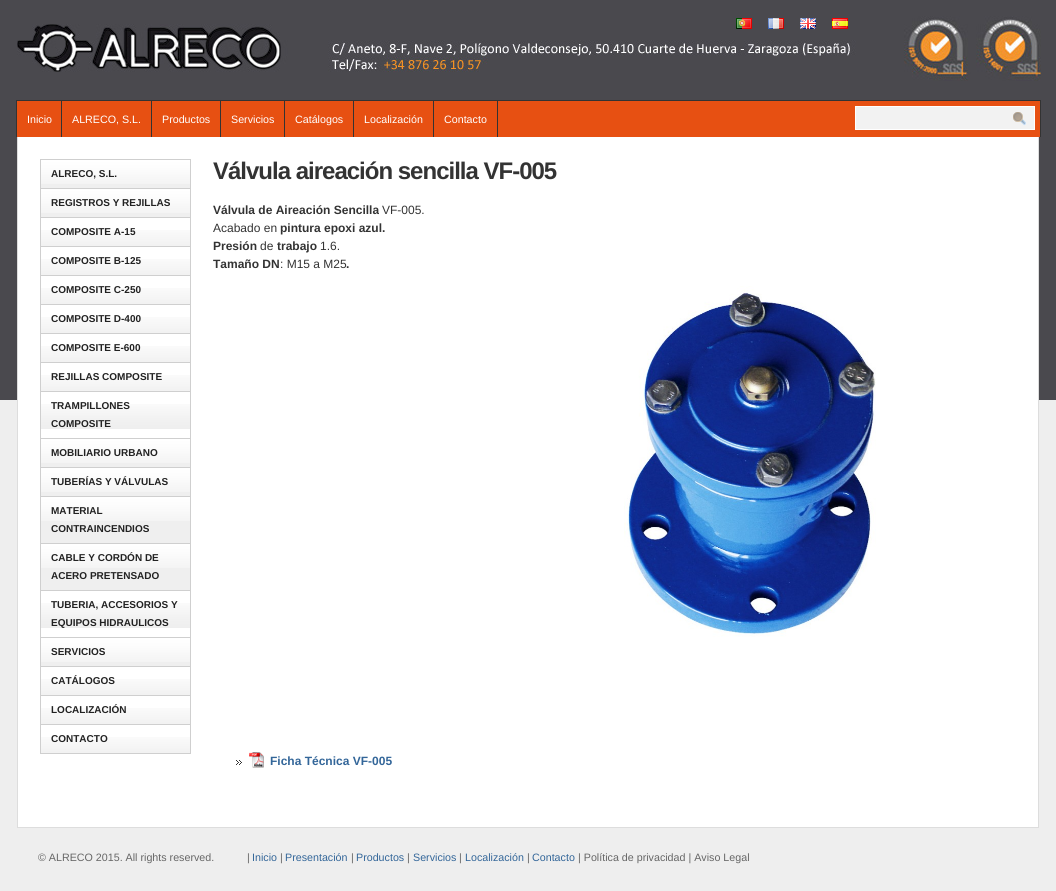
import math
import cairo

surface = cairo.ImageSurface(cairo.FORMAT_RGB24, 1056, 891)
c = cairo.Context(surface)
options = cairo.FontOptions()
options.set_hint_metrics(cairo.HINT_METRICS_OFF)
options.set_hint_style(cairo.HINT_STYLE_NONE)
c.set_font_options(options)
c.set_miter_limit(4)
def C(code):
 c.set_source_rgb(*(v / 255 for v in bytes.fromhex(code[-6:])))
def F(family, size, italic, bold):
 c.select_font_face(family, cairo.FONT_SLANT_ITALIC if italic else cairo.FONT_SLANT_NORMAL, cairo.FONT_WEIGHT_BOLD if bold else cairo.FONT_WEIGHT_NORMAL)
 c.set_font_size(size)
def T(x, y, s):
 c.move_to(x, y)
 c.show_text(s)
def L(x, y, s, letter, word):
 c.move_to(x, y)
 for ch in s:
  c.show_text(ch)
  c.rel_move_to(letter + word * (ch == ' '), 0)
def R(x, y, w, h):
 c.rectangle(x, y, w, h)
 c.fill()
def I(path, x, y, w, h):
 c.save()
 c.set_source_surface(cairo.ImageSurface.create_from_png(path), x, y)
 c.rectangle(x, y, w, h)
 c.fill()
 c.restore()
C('eeeeee')
c.paint()
C('4a494e')
R(0,0,1056,400)
I('1.png',17,16,1024,65)
I('2.png',736,18,16,11)
I('3.png',768,18,16,11)
I('4.png',800,18,16,11)
I('5.png',832,18,16,11)
C('e75012')
R(17,101,1023,36)
C('333333')
R(16,100,1025,1)
R(1040,100,1,37)
R(16,100,1,37)
R(61,101,1,36)
F('Liberation Sans',10.7,0,0)
C('ffffff')
T(27,123,'Inicio')
C('333333')
R(151,101,1,36)
C('ffffff')
T(72,123,'ALRECO, S.L.')
C('333333')
R(220,101,1,36)
C('ffffff')
T(162,123,'Productos')
C('333333')
R(284,101,1,36)
C('ffffff')
T(231,123,'Servicios')
C('333333')
R(353,101,1,36)
C('ffffff')
T(295,123,'Catálogos')
C('333333')
R(433,101,1,36)
C('ffffff')
T(364,123,'Localización')
C('333333')
R(497,101,1,36)
C('ffffff')
T(444,123,'Contacto')
I('6.png',855,106,180,24)
R(18,137,1020,690)
C('dddddd')
R(1038,137,1,691)
R(17,827,1022,1)
R(17,137,1,691)
C('cfcfcf')
R(40,159,151,1)
R(190,159,1,595)
R(40,159,1,595)
C('efefef')
R(41,184,149,4)
I('7.png',41,160,149,24)
C('cfcfcf')
R(41,188,149,1)
F('Liberation Sans',10,0,1)
C('222222')
T(51,177,'ALRECO, S.L.')
C('efefef')
R(41,213,149,4)
I('7.png',41,189,149,24)
C('cfcfcf')
R(41,217,149,1)
C('222222')
T(51,206,'REGISTROS Y REJILLAS')
I('8.png',41,230,149,16)
C('cfcfcf')
R(41,246,149,1)
C('222222')
T(51,235,'COMPOSITE A-15')
I('8.png',41,259,149,16)
C('cfcfcf')
R(41,275,149,1)
C('222222')
T(51,264,'COMPOSITE B-125')
I('8.png',41,288,149,16)
C('cfcfcf')
R(41,304,149,1)
C('222222')
T(51,293,'COMPOSITE C-250')
I('8.png',41,317,149,16)
C('cfcfcf')
R(41,333,149,1)
C('222222')
T(51,322,'COMPOSITE D-400')
I('8.png',41,346,149,16)
C('cfcfcf')
R(41,362,149,1)
C('222222')
T(51,351,'COMPOSITE E-600')
I('8.png',41,375,149,16)
C('cfcfcf')
R(41,391,149,1)
C('222222')
T(51,380,'REJILLAS COMPOSITE')
I('9.png',41,404,149,25)
C('cfcfcf')
R(41,438,149,1)
C('222222')
T(51,409,'TRAMPILLONES')
T(51,427,'COMPOSITE')
C('efefef')
R(41,463,149,4)
I('7.png',41,439,149,24)
C('cfcfcf')
R(41,467,149,1)
C('222222')
T(51,456,'MOBILIARIO URBANO')
C('efefef')
R(41,492,149,4)
I('7.png',41,468,149,24)
C('cfcfcf')
R(41,496,149,1)
C('222222')
T(51,485,'TUBERÍAS Y VÁLVULAS')
C('efefef')
R(41,521,149,22)
I('7.png',41,497,149,24)
C('cfcfcf')
R(41,543,149,1)
C('222222')
T(51,514,'MATERIAL')
T(51,532,'CONTRAINCENDIOS')
C('efefef')
R(41,568,149,22)
I('7.png',41,544,149,24)
C('cfcfcf')
R(41,590,149,1)
C('222222')
T(51,561,'CABLE Y CORDÓN DE')
T(51,579,'ACERO PRETENSADO')
I('9.png',41,603,149,25)
C('cfcfcf')
R(41,637,149,1)
C('222222')
T(51,608,'TUBERIA, ACCESORIOS Y')
T(51,626,'EQUIPOS HIDRAULICOS')
C('efefef')
R(41,662,149,4)
I('7.png',41,638,149,24)
C('cfcfcf')
R(41,666,149,1)
C('222222')
T(51,655,'SERVICIOS')
I('8.png',41,679,149,16)
C('cfcfcf')
R(41,695,149,1)
C('222222')
T(51,684,'CATÁLOGOS')
I('8.png',41,708,149,16)
C('cfcfcf')
R(41,724,149,1)
C('222222')
T(51,713,'LOCALIZACIÓN')
I('8.png',41,737,149,16)
C('cfcfcf')
R(41,753,149,1)
C('222222')
T(51,742,'CONTACTO')
F('Liberation Sans',24,0,1)
C('333333')
L(213,179,'Válvula aireación sencilla VF-005',-1,0)
F('Liberation Sans',12,0,1)
T(213,214,'Válvula de Aireación Sencilla')
F('Liberation Sans',12,0,0)
T(382,214,'VF-005.')
T(213,232,'Acabado en')
F('Liberation Sans',12,0,1)
T(280,232,'pintura epoxi azul.')
T(213,250,'Presión')
F('Liberation Sans',12,0,0)
T(260,250,'de')
F('Liberation Sans',12,0,1)
T(277,250,'trabajo')
F('Liberation Sans',12,0,0)
T(320,250,'1.6.')
F('Liberation Sans',12,0,1)
T(213,268,'Tamaño DN')
F('Liberation Sans',12,0,0)
T(280,268,': M15 a M25')
F('Liberation Sans',12,0,1)
T(346,268,'.')
I('10.png',624,286,252,351)
I('11.png',236,760,6,5)
I('12.png',249,752,15,16)
C('336699')
T(270,765,'Ficha Técnica VF-005')
F('Liberation Sans',10.7,0,0)
C('666666')
T(38,861,'© ALRECO 2015. All rights reserved.           |')
C('336699')
T(252,861,'Inicio')
C('666666')
T(280,861,'|')
C('336699')
T(285,861,'Presentación')
C('666666')
T(351,861,'|')
C('336699')
T(356,861,'Productos')
C('666666')
T(407,861,'|')
C('336699')
T(413,861,'Servicios')
C('666666')
T(459,861,'|')
C('336699')
T(465,861,'Localización')
C('666666')
T(527,861,'|')
C('336699')
T(532,861,'Contacto')
C('666666')
T(578,861,'| Política de privacidad | Aviso Legal')
surface.write_to_png('o.png')
